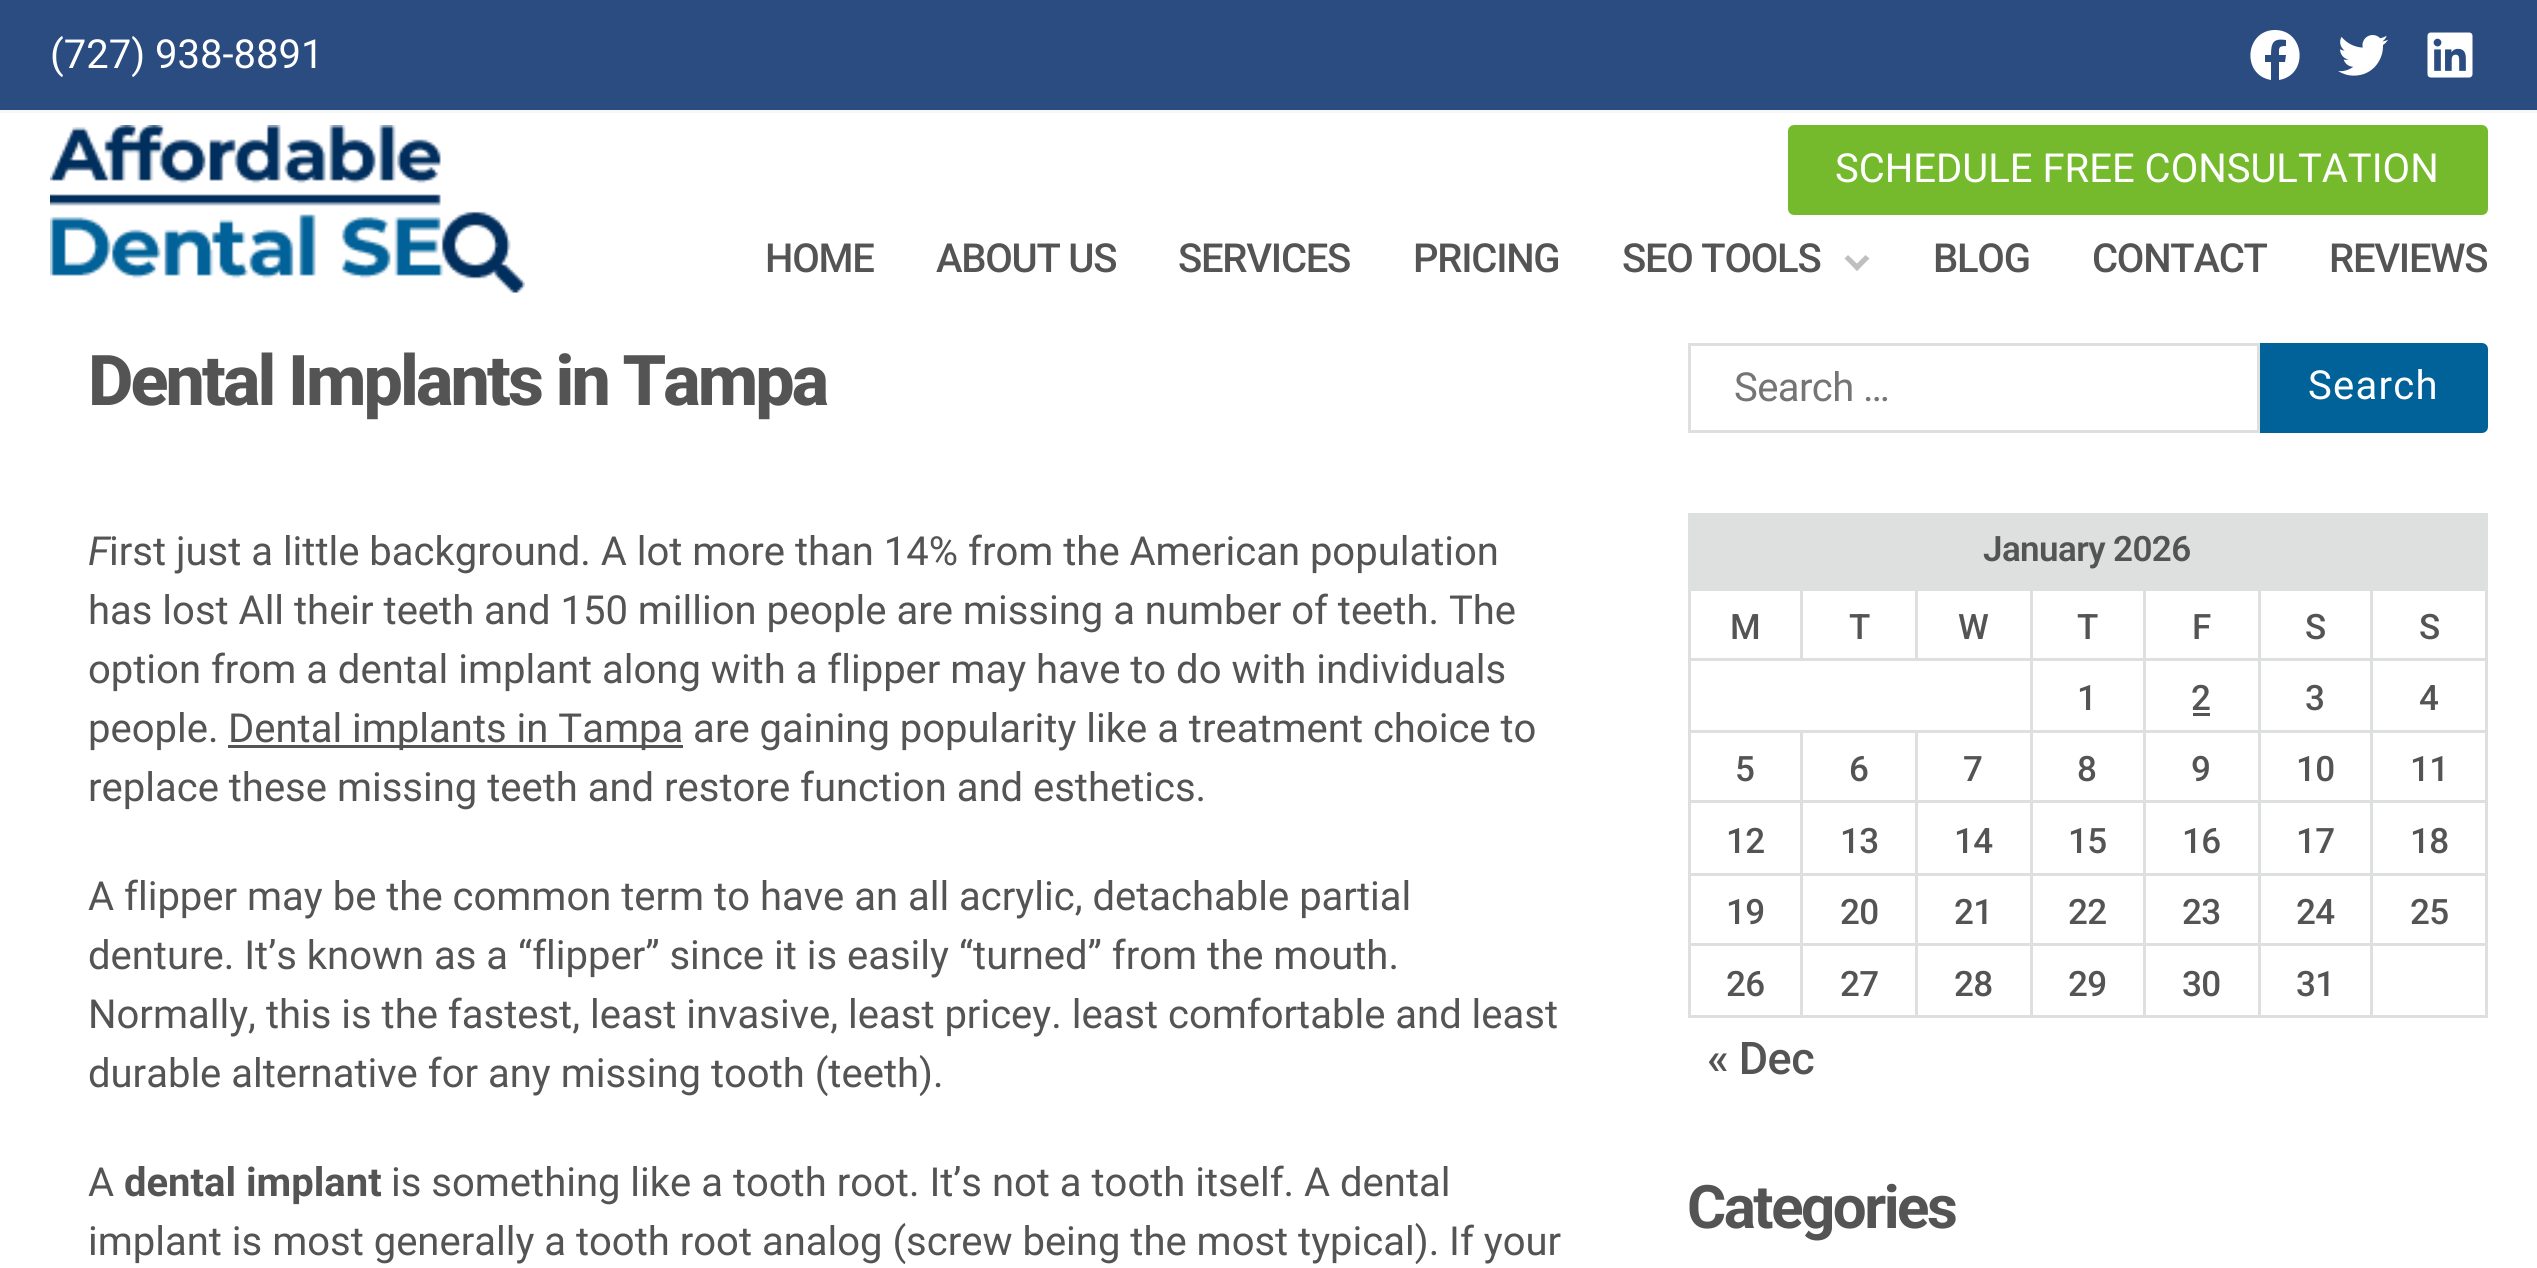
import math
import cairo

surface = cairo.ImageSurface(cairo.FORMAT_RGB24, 2537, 1268)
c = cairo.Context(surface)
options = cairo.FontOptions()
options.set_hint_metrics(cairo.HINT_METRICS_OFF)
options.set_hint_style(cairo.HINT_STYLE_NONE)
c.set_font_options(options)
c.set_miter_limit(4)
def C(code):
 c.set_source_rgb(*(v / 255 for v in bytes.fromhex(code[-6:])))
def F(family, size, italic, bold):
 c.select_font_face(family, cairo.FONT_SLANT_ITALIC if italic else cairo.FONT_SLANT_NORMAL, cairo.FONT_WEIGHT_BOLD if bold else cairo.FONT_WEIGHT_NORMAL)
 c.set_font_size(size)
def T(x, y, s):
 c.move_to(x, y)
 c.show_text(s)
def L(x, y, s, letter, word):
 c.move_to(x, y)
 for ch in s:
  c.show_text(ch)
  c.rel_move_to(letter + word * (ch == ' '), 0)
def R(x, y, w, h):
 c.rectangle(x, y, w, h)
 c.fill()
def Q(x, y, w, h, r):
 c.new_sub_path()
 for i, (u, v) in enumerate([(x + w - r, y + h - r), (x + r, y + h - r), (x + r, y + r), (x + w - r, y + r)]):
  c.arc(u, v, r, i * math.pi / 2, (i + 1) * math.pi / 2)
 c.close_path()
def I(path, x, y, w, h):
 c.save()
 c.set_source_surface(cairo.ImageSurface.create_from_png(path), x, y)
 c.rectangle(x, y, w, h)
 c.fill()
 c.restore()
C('ffffff')
c.paint()
C('2b4c81')
R(0,0,2537,110)
C('f7f7f7')
R(0,110,2537,3)
F('Roboto',40,0,0)
C('ffffff')
T(50,68,'(727) 938-8891')
c.new_path()
c.move_to(2275,30)
c.curve_to(2245,30,2241,75,2271,80)
c.line_to(2271,62)
c.line_to(2265,62)
c.line_to(2265,55)
c.line_to(2271,55)
c.curve_to(2271,43,2273,38,2286,40)
c.line_to(2286,46)
c.curve_to(2278,46,2279,48,2279,55)
c.line_to(2286,55)
c.line_to(2285,62)
c.line_to(2279,62)
c.line_to(2279,80)
c.curve_to(2309,75,2305,30,2275,30)
c.close_path()
c.fill()
I('1.png',2338,35,50,41)
I('2.png',2427,32,46,46)
I('3.png',50,125,475,168)
C('75ba2c')
Q(1790.5,127.5,695,85,3.5)
c.fill_preserve()
c.set_line_width(5)
c.stroke()
C('ffffff')
T(1835,182,'SCHEDULE FREE CONSULTATION')
F('Roboto Medium',40,0,0)
C('545454')
L(765,272,'HOME',-1.25,0)
L(936,272,'ABOUT US',-1.25,0)
L(1178,272,'SERVICES',-1.25,0)
L(1413,272,'PRICING',-1.25,0)
L(1622,272,'SEO TOOLS',-1.25,0)
C('bfbfbf')
c.new_path()
c.move_to(1844.5,258.5)
c.line_to(1848,255)
c.line_to(1860.5,267)
c.line_to(1857,271)
c.close_path()
c.fill()
c.new_path()
c.move_to(1853.5,267)
c.line_to(1865.5,255)
c.line_to(1869.5,258.5)
c.line_to(1857,271)
c.close_path()
c.fill()
C('545454')
L(1933,272,'BLOG',-1.25,0)
L(2092,272,'CONTACT',-1.25,0)
L(2329,272,'REVIEWS',-1.25,0)
F('Roboto ExtraBold',70,0,0)
L(88,405,'Dental Implants in Tampa',-2.9,0)
F('Roboto',40,1,0)
T(88,565,'F')
F('Roboto',40,0,0)
T(109,565,'irst just a little background. A lot more than 14% from the American population')
T(88,624,'has lost All their teeth and 150 million people are missing a number of teeth. The')
T(88,683,'option from a dental implant along with a flipper may have to do with individuals')
T(88,742,'people.')
R(228,745,455,3)
T(228,742,'Dental implants in Tampa are gaining popularity like a treatment choice to')
T(88,801,'replace these missing teeth and restore function and esthetics.')
T(88,910,'A flipper may be the common term to have an all acrylic, detachable partial')
T(88,969,'denture. It’s known as a “flipper” since it is easily “turned” from the mouth.')
T(88,1028,'Normally, this is the fastest, least invasive, least pricey. least comfortable and least')
T(88,1087,'durable alternative for any missing tooth (teeth).')
T(88,1196,'A')
F('Roboto',40,0,1)
T(124,1196,'dental implant')
F('Roboto',40,0,0)
T(391,1196,'is something like a tooth root. It’s not a tooth itself. A dental')
T(88,1255,'implant is most generally a tooth root analog (screw being the most typical). If your')
c.rectangle(1689.5,344.5,569,87)
C('dedfdf')
c.set_line_width(3)
c.stroke()
C('757575')
L(1734,401,'Search …',-.6,0)
C('006298')
c.new_path()
c.move_to(2262.5,345.5)
c.line_to(2482,345.5)
c.curve_to(2484,345.5,2485.5,347,2485.5,349)
c.line_to(2485.5,427)
c.curve_to(2485.5,429,2484,430.5,2482,430.5)
c.line_to(2262.5,430.5)
c.close_path()
c.fill_preserve()
c.set_line_width(5)
c.stroke()
C('ffffff')
L(2308,399,'Search',1.25,0)
C('dedfdf')
R(1688,513,800,3)
R(2485,513,3,505)
R(1688,1015,800,3)
R(1688,513,3,505)
R(1691,516,794,72)
F('Roboto SemiBold',35,0,0)
C('545454')
L(1983,561,'January 2026',-.6,0)
C('dedfdf')
R(2370,588,115,3)
R(2370,658,115,3)
R(2370,730,115,3)
R(2370,800,115,3)
R(2370,873,115,3)
R(2370,943,115,3)
R(2370,943,3,72)
R(2258,943,115,3)
R(2370,873,3,72)
R(2258,873,115,3)
R(2370,800,3,75)
R(2258,800,115,3)
R(2370,730,3,73)
R(2258,730,115,3)
R(2370,658,3,75)
R(2258,658,115,3)
R(2370,588,3,72)
R(2258,588,115,3)
R(2258,943,3,72)
R(2143,943,117,3)
R(2258,873,3,72)
R(2143,873,117,3)
R(2258,800,3,75)
R(2143,800,117,3)
R(2258,730,3,73)
R(2143,730,117,3)
R(2258,658,3,75)
R(2143,658,117,3)
R(2258,588,3,72)
R(2143,588,117,3)
R(2143,943,3,72)
R(2030,943,115,3)
R(2143,873,3,72)
R(2030,873,115,3)
R(2143,800,3,75)
R(2030,800,115,3)
R(2143,730,3,73)
R(2030,730,115,3)
R(2143,658,3,75)
R(2030,658,115,3)
R(2143,588,3,72)
R(2030,588,115,3)
R(2030,943,3,72)
R(1915,943,118,3)
R(2030,873,3,72)
R(1915,873,118,3)
R(2030,800,3,75)
R(1915,800,118,3)
R(2030,730,3,73)
R(1915,730,118,3)
R(2030,658,3,75)
R(1690,658,343,3)
R(2030,588,3,72)
R(1915,588,118,3)
R(1915,588,3,72)
R(1800,588,118,3)
R(1800,588,3,72)
R(1690,588,113,3)
F('Roboto Medium',35,0,0)
C('545454')
L(1730,639,'M',-.6,0)
L(1849,639,'T',-.6,0)
L(1958,639,'W',-.6,0)
L(2077,639,'T',-.6,0)
L(2192,639,'F',-.6,0)
L(2305,639,'S',-.6,0)
L(2419,639,'S',-.6,0)
L(2077,710,'1',-.6,0)
L(2191,710,'2',-.6,0)
R(2193,713,17,3)
L(2305,710,'3',-.6,0)
L(2419,710,'4',-.6,0)
C('dedfdf')
R(1915,943,3,72)
R(1800,943,118,3)
R(1915,873,3,72)
R(1800,873,118,3)
R(1915,800,3,75)
R(1800,800,118,3)
R(1915,730,3,73)
R(1800,730,118,3)
R(1800,943,3,72)
R(1690,943,113,3)
R(1800,873,3,72)
R(1690,873,113,3)
R(1800,800,3,75)
R(1690,800,113,3)
R(1800,730,3,73)
R(1690,730,113,3)
C('545454')
L(1735,781,'5',-.6,0)
L(1849,781,'6',-.6,0)
L(1963,781,'7',-.6,0)
L(2077,781,'8',-.6,0)
L(2191,781,'9',-.6,0)
L(2296,781,'10',-.6,0)
L(2410,781,'11',-.6,0)
L(1726,853,'12',-.6,0)
L(1840,853,'13',-.6,0)
L(1954,853,'14',-.6,0)
L(2068,853,'15',-.6,0)
L(2182,853,'16',-.6,0)
L(2296,853,'17',-.6,0)
L(2410,853,'18',-.6,0)
L(1726,924,'19',-.6,0)
L(1840,924,'20',-.6,0)
L(1954,924,'21',-.6,0)
L(2068,924,'22',-.6,0)
L(2182,924,'23',-.6,0)
L(2296,924,'24',-.6,0)
L(2410,924,'25',-.6,0)
L(1726,996,'26',-.6,0)
L(1840,996,'27',-.6,0)
L(1954,996,'28',-.6,0)
L(2068,996,'29',-.6,0)
L(2182,996,'30',-.6,0)
L(2296,996,'31',-.6,0)
F('Roboto Medium',45,0,0)
L(1707,1074,'« Dec',-.6,0)
F('Roboto',60,0,1)
L(1687,1228,'Categories',-2.5,0)
surface.write_to_png('o.png')
